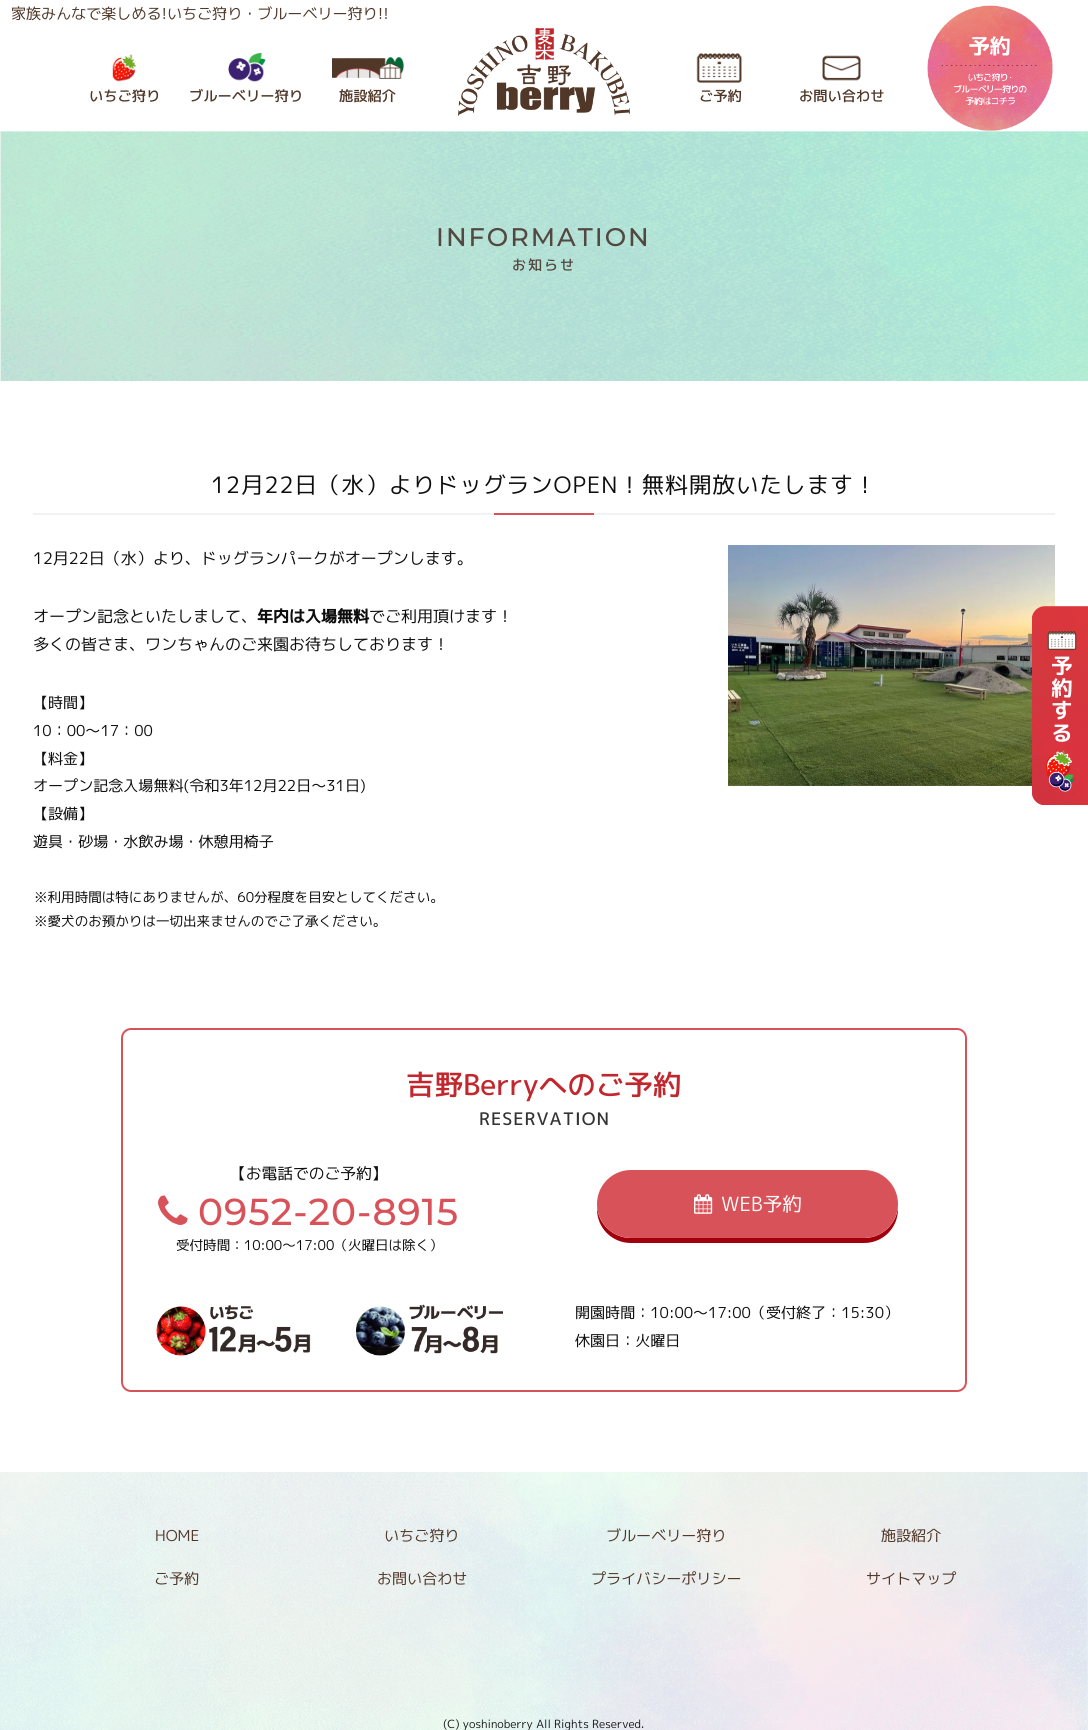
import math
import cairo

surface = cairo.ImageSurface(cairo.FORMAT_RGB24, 1088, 1730)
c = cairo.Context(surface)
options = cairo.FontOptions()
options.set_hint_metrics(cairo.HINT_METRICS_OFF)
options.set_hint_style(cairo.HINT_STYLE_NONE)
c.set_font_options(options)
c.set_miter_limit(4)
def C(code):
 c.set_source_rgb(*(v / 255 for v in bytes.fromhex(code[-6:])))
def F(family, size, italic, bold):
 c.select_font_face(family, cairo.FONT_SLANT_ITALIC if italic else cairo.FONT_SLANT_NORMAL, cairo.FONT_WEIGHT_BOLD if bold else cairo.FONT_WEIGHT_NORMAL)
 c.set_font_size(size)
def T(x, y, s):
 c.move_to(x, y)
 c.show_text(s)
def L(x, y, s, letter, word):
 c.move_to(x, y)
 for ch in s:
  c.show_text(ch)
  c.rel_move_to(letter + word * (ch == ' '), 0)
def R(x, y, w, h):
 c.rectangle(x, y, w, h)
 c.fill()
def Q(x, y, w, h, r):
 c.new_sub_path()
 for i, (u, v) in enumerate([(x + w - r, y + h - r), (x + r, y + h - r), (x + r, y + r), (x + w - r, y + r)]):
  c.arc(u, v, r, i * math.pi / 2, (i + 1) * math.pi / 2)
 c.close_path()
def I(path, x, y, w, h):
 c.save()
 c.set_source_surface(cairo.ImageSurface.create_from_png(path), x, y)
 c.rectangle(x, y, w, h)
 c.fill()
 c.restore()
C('ffffff')
c.paint()
F('M PLUS 1p',15.05,0,0)
C('503728')
T(11,19,'家族みんなで楽しめる!いちご狩り・ブルーベリー狩り!!')
I('1.png',112,54,25,28)
F('M PLUS 1p Medium',14.25,0,0)
T(89,101,'いちご狩り')
I('2.png',228,53,38,29)
T(189,101,'ブルーベリー狩り')
I('3.png',332,57,72,22)
T(339,101,'施設紹介')
I('4.png',458,28,172,88)
I('5.png',696,53,46,30)
T(699,101,'ご予約')
I('6.png',822,55,39,26)
T(799,101,'お問い合わせ')
I('7.png',927,5,126,126)
I('8.png',0,131,1088,250)
F('Montserrat Medium',25.5,0,0)
C('534741')
L(436,246,'INFORMATION',2,0)
F('M PLUS 1p Medium',14,0,0)
L(512,270,'お知らせ',2,0)
C('f2f2f2')
R(33,513,1022,2)
F('M PLUS 1p',22.55,0,0)
C('0e0e0e')
L(211,493,'12月22日（水）よりドッグランOPEN！無料開放いたします！',1,0)
C('d85259')
R(494,513,100,2)
F('M PLUS 1p',16,0,0)
C('0e0e0e')
T(33,564,'12月22日（水）より、ドッグランパークがオープンします。')
T(33,622,'オープン記念といたしまして、')
F('M PLUS 1p',16,0,1)
T(257,622,'年内は入場無料')
F('M PLUS 1p',16,0,0)
T(369,622,'でご利用頂けます！')
T(33,650,'多くの皆さま、ワンちゃんのご来園お待ちしております！')
F('M PLUS 1p',15.05,0,0)
T(33,708,'【時間】')
T(33,736,'10：00～17：00')
T(33,764,'【料金】')
T(33,791,'オープン記念入場無料(令和3年12月22日〜31日)')
T(33,819,'【設備】')
T(33,847,'遊具・砂場・水飲み場・休憩用椅子')
F('M PLUS 1p',13.55,0,0)
T(34,902,'※利用時間は特にありませんが、60分程度を目安としてください。')
T(34,926,'※愛犬のお預かりは一切出来ませんのでご了承ください。')
I('9.png',728,545,327,241)
I('10.png',1032,606,56,199)
Q(122,1029,844,362,9)
C('d85259')
c.stroke()
F('M PLUS 1p Medium',28.5,0,0)
C('c1272d')
T(406,1095,'吉野Berryへのご予約')
F('M PLUS 1p Medium',17.25,0,0)
C('333333')
L(479,1125,'RESERVATION',1,0)
F('M PLUS 1p',15.75,0,0)
C('0e0e0e')
T(230,1179,'【お電話でのご予約】')
I('11.png',158,1195,30,30)
F('Montserrat Medium',37.5,0,0)
C('d85259')
L(198,1225,'0952-20-8915',1,0)
F('M PLUS 1p',13.55,0,0)
C('0e0e0e')
T(176,1250,'受付時間：10:00〜17:00（火曜日は除く）')
C('9f000c')
c.new_path()
c.move_to(597,1206)
c.line_to(597,1209)
c.curve_to(597,1228,612,1243,631,1243)
c.line_to(864,1243)
c.curve_to(883,1243,898,1228,898,1209)
c.line_to(898,1206)
c.curve_to(897,1224,882,1238,864,1238)
c.line_to(631,1238)
c.curve_to(613,1238,598,1224,597,1206)
c.close_path()
c.fill()
C('d85259')
Q(597,1170,301,68,34)
c.fill()
I('12.png',694,1194,19,20)
F('M PLUS 1p',19.5,0,0)
C('ffffff')
T(721,1211,'WEB予約')
I('13.png',156,1305,155,51)
I('14.png',356,1304,147,52)
F('M PLUS 1p',15.05,0,0)
C('0e0e0e')
T(575,1318,'開園時間：10:00〜17:00（受付終了：15:30）')
T(575,1346,'休園日：火曜日')
I('15.png',0,1472,1088,258)
C('503728')
T(155,1541,'HOME')
T(384,1541,'いちご狩り')
T(606,1541,'ブルーベリー狩り')
T(881,1541,'施設紹介')
T(154,1584,'ご予約')
T(377,1584,'お問い合わせ')
T(591,1584,'プライバシーポリシー')
T(866,1584,'サイトマップ')
F('M PLUS 1p',11.25,0,0)
C('0e0e0e')
T(443,1728,'(C) yoshinoberry All Rights Reserved.')
surface.write_to_png('o.png')
